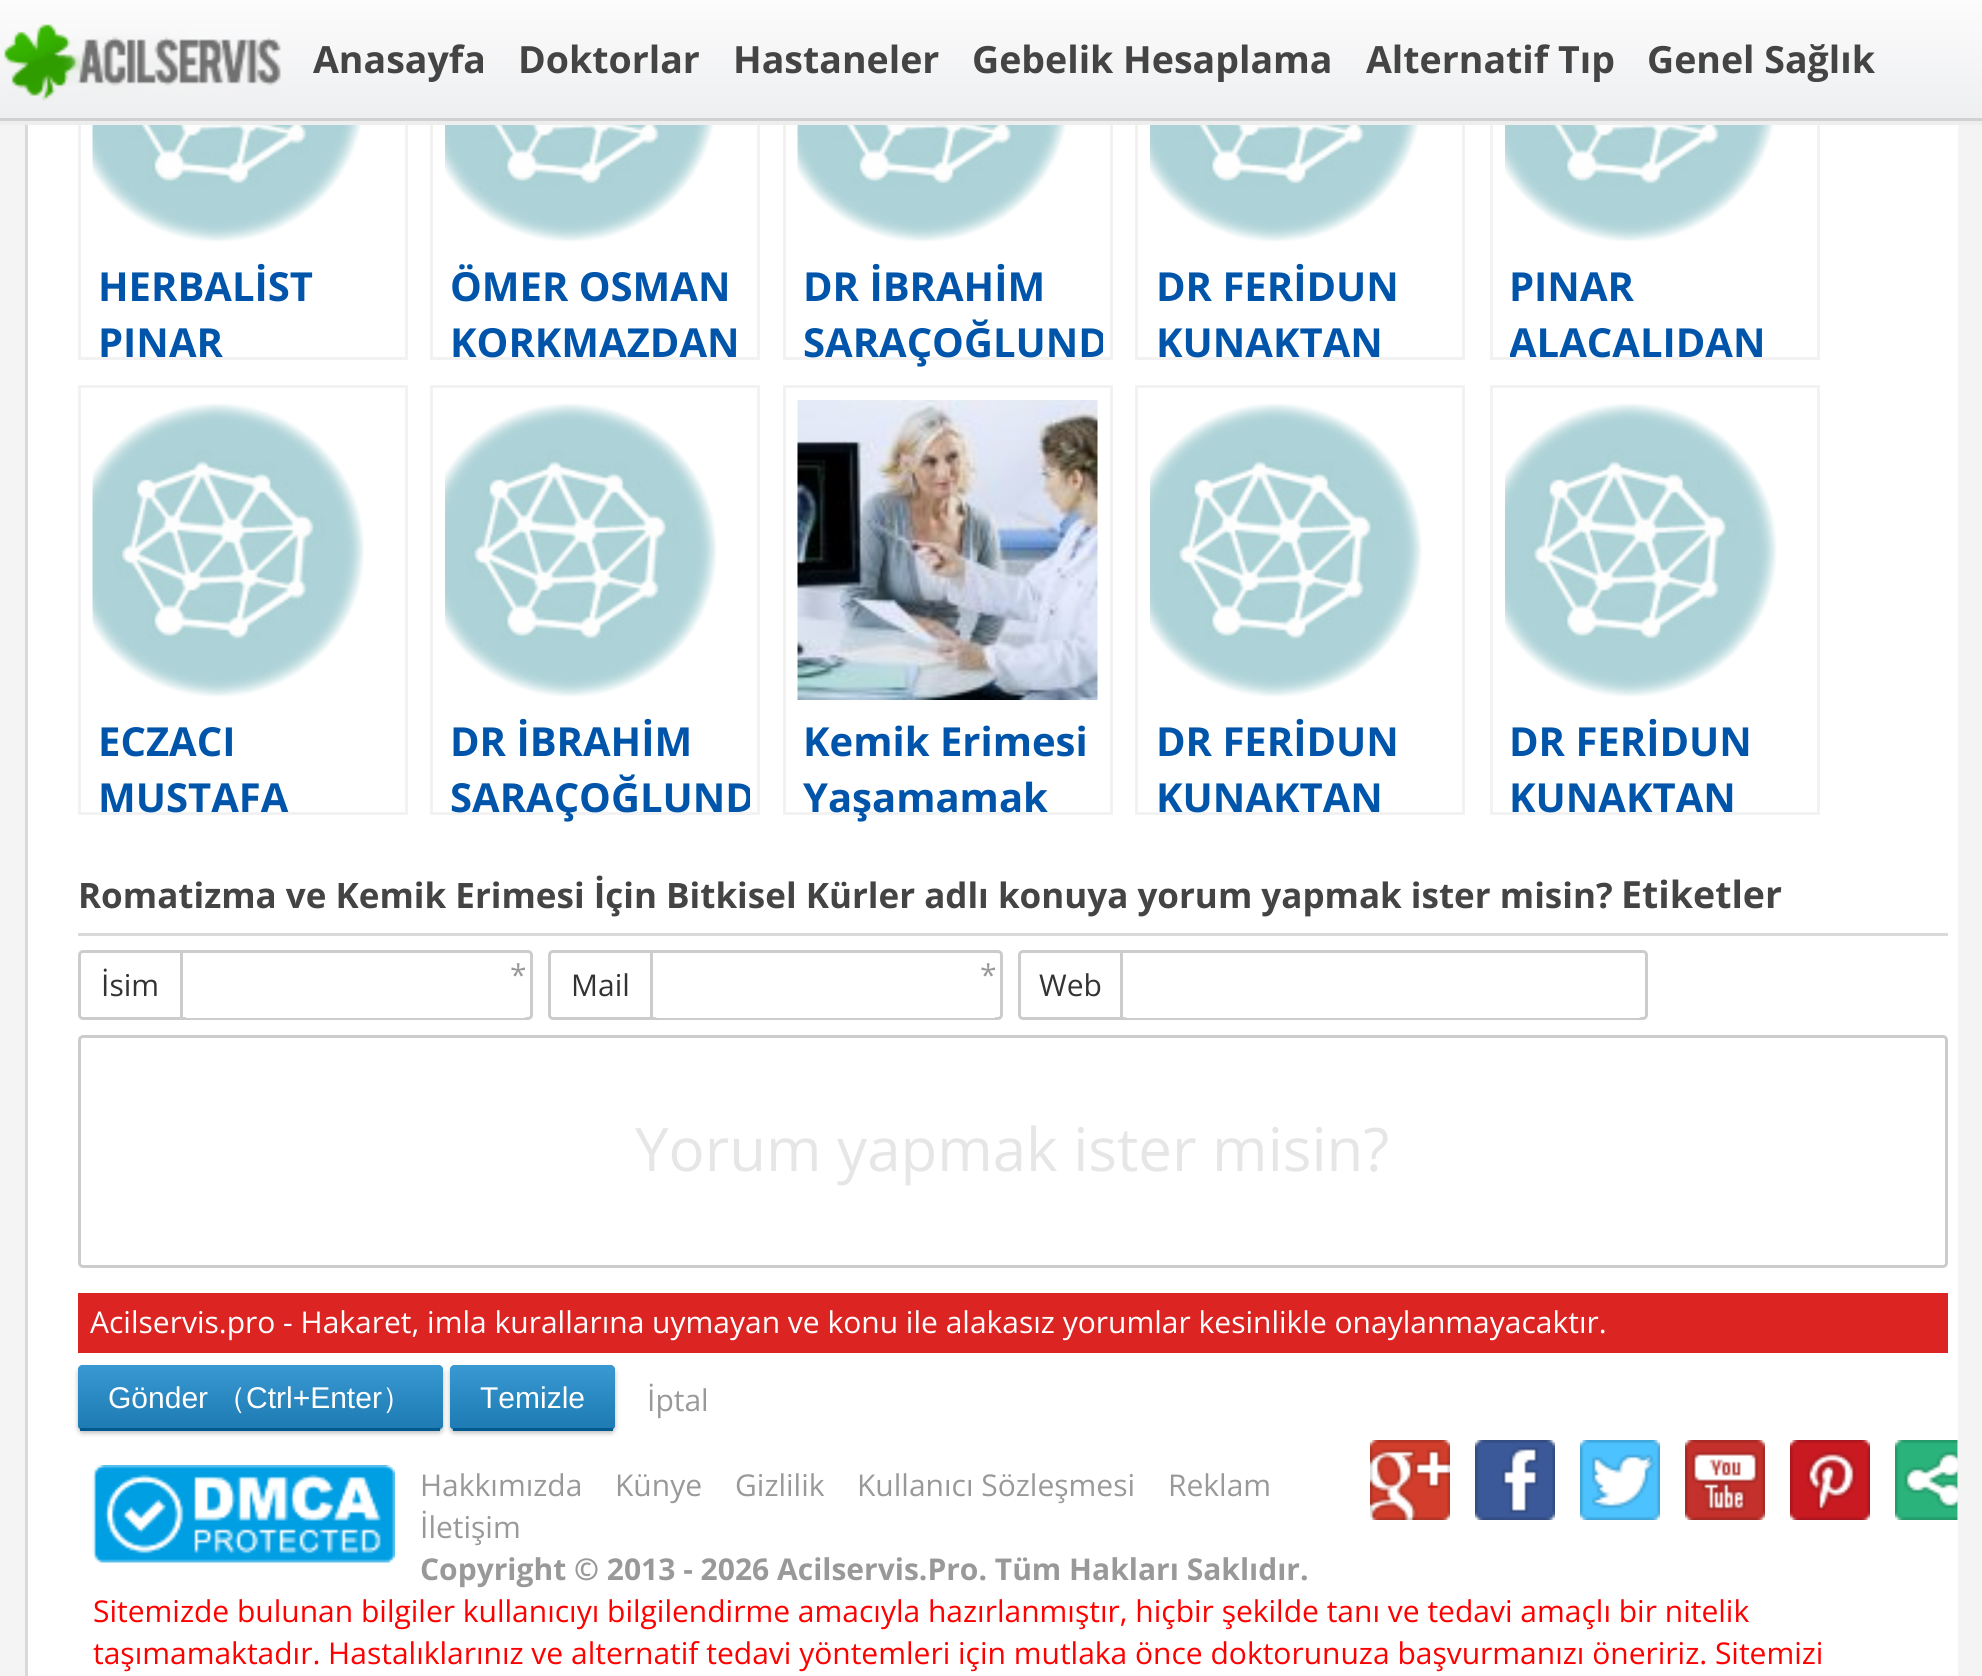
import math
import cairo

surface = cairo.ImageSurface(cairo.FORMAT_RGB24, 1982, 1676)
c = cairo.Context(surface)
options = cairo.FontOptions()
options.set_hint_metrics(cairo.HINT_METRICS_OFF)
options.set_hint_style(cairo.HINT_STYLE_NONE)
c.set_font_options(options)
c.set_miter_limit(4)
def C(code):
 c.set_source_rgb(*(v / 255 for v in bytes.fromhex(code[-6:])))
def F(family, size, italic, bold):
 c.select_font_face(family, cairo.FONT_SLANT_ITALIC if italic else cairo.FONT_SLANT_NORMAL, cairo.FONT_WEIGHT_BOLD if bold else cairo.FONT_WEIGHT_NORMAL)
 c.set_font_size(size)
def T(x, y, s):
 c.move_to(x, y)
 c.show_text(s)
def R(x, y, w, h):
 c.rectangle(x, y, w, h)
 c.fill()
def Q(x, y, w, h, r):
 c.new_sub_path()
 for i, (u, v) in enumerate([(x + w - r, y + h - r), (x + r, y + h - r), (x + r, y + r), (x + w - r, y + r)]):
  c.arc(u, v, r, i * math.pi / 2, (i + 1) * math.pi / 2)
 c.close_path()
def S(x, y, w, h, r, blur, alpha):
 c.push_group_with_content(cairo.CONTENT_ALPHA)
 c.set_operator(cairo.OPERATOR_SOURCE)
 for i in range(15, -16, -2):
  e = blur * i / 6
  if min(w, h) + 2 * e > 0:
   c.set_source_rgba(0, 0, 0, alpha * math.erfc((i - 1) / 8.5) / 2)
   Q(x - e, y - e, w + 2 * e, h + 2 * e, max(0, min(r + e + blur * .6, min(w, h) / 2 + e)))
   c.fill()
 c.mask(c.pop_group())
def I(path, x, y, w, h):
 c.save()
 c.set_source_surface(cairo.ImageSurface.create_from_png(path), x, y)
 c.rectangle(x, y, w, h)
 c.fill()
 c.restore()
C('f4f4f4')
c.paint()
C('ffffff')
R(28,125,1930,1551)
c.rectangle(26.5,-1.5,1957,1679)
C('d9d9d9')
c.set_line_width(3)
c.stroke()
c.rectangle(79.5,-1.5,327,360)
C('f2f2f2')
c.stroke()
c.rectangle(431.5,-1.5,327,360)
c.stroke()
c.rectangle(784.5,-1.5,327,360)
c.stroke()
c.rectangle(1136.5,-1.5,327,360)
c.stroke()
c.rectangle(1491.5,-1.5,327,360)
c.stroke()
C('eeeeee')
c.new_path()
c.move_to(0,120)
c.line_to(0,125)
c.line_to(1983,125)
c.line_to(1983,5)
c.line_to(1982,5)
c.line_to(1982,120)
c.close_path()
c.fill()
gradient = cairo.LinearGradient(991,0,991,118)
gradient.add_color_stop_rgba(0,0.988,0.988,0.992,1)
gradient.add_color_stop_rgba(1,0.933,0.937,0.941,1)
c.set_source(gradient)
R(0,0,1982,118)
C('d1d1d1')
R(0,118,1982,3)
I('1.png',4,24,277,77)
F('Open Sans',37.5,0,1)
C('444444')
T(313,73,'Anasayfa')
T(518,73,'Doktorlar')
T(733,73,'Hastaneler')
T(972,73,'Gebelik Hesaplama')
T(1366,73,'Alternatif Tıp')
T(1647,73,'Genel Sağlık')
I('2.png',92,125,272,117)
F('Open Sans',40,0,1)
C('0055aa')
T(98,301,'HERBALİST')
T(98,357,'PINAR')
I('3.png',445,125,272,117)
T(450,301,'ÖMER OSMAN')
T(450,357,'KORKMAZDAN')
I('4.png',797,125,272,117)
T(803,301,'DR İBRAHİM')
c.save()
c.rectangle(803,258,300,112)
c.clip()
T(803,357,'SARAÇOĞLUND')
c.restore()
I('5.png',1150,125,272,117)
T(1156,301,'DR FERİDUN')
T(1156,357,'KUNAKTAN')
I('6.png',1505,125,272,117)
T(1509,301,'PINAR')
c.save()
c.rectangle(1510,258,300,112)
c.clip()
T(1509,357,'ALACALIDAN')
c.restore()
c.rectangle(79.5,386.5,327,427)
C('f2f2f2')
c.stroke()
I('7.png',92,403,272,294)
C('0055aa')
T(98,756,'ECZACI')
T(98,812,'MUSTAFA')
c.rectangle(431.5,386.5,327,427)
C('f2f2f2')
c.stroke()
I('8.png',445,403,272,294)
C('0055aa')
T(450,756,'DR İBRAHİM')
c.save()
c.rectangle(450,713,300,112)
c.clip()
T(450,812,'SARAÇOĞLUND')
c.restore()
c.rectangle(784.5,386.5,327,427)
C('f2f2f2')
c.stroke()
I('9.png',797,400,301,300)
C('0055aa')
T(803,756,'Kemik Erimesi')
T(803,812,'Yaşamamak')
c.rectangle(1136.5,386.5,327,427)
C('f2f2f2')
c.stroke()
I('10.png',1150,403,272,294)
C('0055aa')
T(1156,756,'DR FERİDUN')
T(1156,812,'KUNAKTAN')
c.rectangle(1491.5,386.5,327,427)
C('f2f2f2')
c.stroke()
I('11.png',1505,403,272,294)
C('0055aa')
T(1509,756,'DR FERİDUN')
T(1509,812,'KUNAKTAN')
C('dadada')
R(78,933,1870,3)
F('Open Sans',35,0,1)
C('444444')
T(78,908,'Romatizma ve Kemik Erimesi İçin Bitkisel Kürler adlı konuya yorum yapmak ister misin?')
F('Open Sans',37.5,0,1)
T(1621,908,'Etiketler')
Q(79.5,951.5,452,67,3.5)
C('cccccc')
c.stroke()
C('ffffff')
Q(183,953,345,65,5)
c.fill()
C('cccccc')
R(180,953,3,65)
F('Open Sans',30,0,0)
C('333333')
T(101,996,'İsim')
C('999999')
T(510,986,'*')
Q(549.5,951.5,452,67,3.5)
C('cccccc')
c.stroke()
C('ffffff')
Q(653,953,345,65,5)
c.fill()
C('999999')
T(980,986,'*')
C('cccccc')
R(650,953,3,65)
C('333333')
T(571,996,'Mail')
Q(1019.5,951.5,627,67,3.5)
C('cccccc')
c.stroke()
R(1120,953,3,65)
C('333333')
T(1039,996,'Web')
C('ffffff')
Q(1123,953,520,65,5)
c.fill()
Q(79.5,1036.5,1867,230,3.5)
C('cccccc')
c.stroke()
F('Open Sans',60,0,0)
C('e6e6e6')
T(635,1171,'Yorum yapmak ister misin?')
C('dc2523')
R(78,1293,1870,60)
F('Open Sans',30,0,0)
C('ffffff')
T(90,1333,'Acilservis.pro - Hakaret, imla kurallarına uymayan ve konu ile alakasız yorumlar kesinlikle onaylanmayacaktır.')
C('bbbbbb')
S(78,1368,365,65,5,2.5,1)
C('1e7bb3')
Q(78,1365,365,65,5)
c.fill()
c.save()
Q(78,1365,365,65,5)
c.clip()
gradient = cairo.LinearGradient(260,1365,260,1428)
gradient.add_color_stop_rgba(0,0.224,0.6,0.824,1)
gradient.add_color_stop_rgba(1,0.118,0.482,0.702,1)
c.set_source(gradient)
c.new_path()
c.move_to(83,1365)
c.line_to(438,1365)
c.curve_to(441,1365,443,1367,443,1370)
c.line_to(443,1428)
c.line_to(78,1428)
c.line_to(78,1370)
c.curve_to(78,1367,80,1365,83,1365)
c.close_path()
c.fill()
gradient = cairo.LinearGradient(260,1428,260,1490)
gradient.add_color_stop_rgba(0,0.224,0.6,0.824,1)
gradient.add_color_stop_rgba(1,0.118,0.482,0.702,1)
c.set_source(gradient)
R(78,1428,365,2)
c.restore()
C('02598e')
R(80,1428,360,3)
F('Liberation Sans',30,0,0)
C('ffffff')
T(108,1408,'Gönder')
F('WenQuanYi Zen Hei Medium',30,0,0)
T(216,1408,'（')
F('Liberation Sans',30,0,0)
T(246,1408,'Ctrl+Enter')
F('WenQuanYi Zen Hei Medium',30,0,0)
T(382,1408,'）')
C('bbbbbb')
S(450,1368,165,65,5,2.5,1)
C('1e7bb3')
Q(450,1365,165,65,5)
c.fill()
c.save()
Q(450,1365,165,65,5)
c.clip()
gradient = cairo.LinearGradient(533,1365,533,1428)
gradient.add_color_stop_rgba(0,0.224,0.6,0.824,1)
gradient.add_color_stop_rgba(1,0.118,0.482,0.702,1)
c.set_source(gradient)
c.new_path()
c.move_to(455,1365)
c.line_to(610,1365)
c.curve_to(613,1365,615,1367,615,1370)
c.line_to(615,1428)
c.line_to(450,1428)
c.line_to(450,1370)
c.curve_to(450,1367,452,1365,455,1365)
c.close_path()
c.fill()
gradient = cairo.LinearGradient(533,1428,533,1490)
gradient.add_color_stop_rgba(0,0.224,0.6,0.824,1)
gradient.add_color_stop_rgba(1,0.118,0.482,0.702,1)
c.set_source(gradient)
R(450,1428,165,2)
c.restore()
C('02598e')
R(453,1428,160,3)
F('Liberation Sans',30,0,0)
C('ffffff')
T(480,1408,'Temizle')
F('Open Sans',30,0,0)
C('999999')
T(647,1411,'İptal')
I('12.png',1370,1440,80,80)
I('13.png',1475,1440,80,80)
I('14.png',1580,1440,80,80)
I('15.png',1685,1440,80,80)
I('16.png',1790,1440,80,80)
I('17.png',1895,1440,63,80)
I('18.png',92,1465,303,98)
T(420,1496,'Hakkımızda')
T(615,1496,'Künye')
T(735,1496,'Gizlilik')
T(857,1496,'Kullanıcı Sözleşmesi')
T(1168,1496,'Reklam')
T(420,1538,'İletişim')
F('Open Sans',30,0,1)
T(420,1580,'Copyright © 2013 - 2026 Acilservis.Pro. Tüm Hakları Saklıdır.')
F('Open Sans',30,0,0)
C('ff0000')
T(93,1622,'Sitemizde bulunan bilgiler kullanıcıyı bilgilendirme amacıyla hazırlanmıştır, hiçbir şekilde tanı ve tedavi amaçlı bir nitelik')
T(93,1664,'taşımamaktadır. Hastalıklarınız ve alternatif tedavi yöntemleri için mutlaka önce doktorunuza başvurmanızı öneririz. Sitemizi')
surface.write_to_png('o.png')
